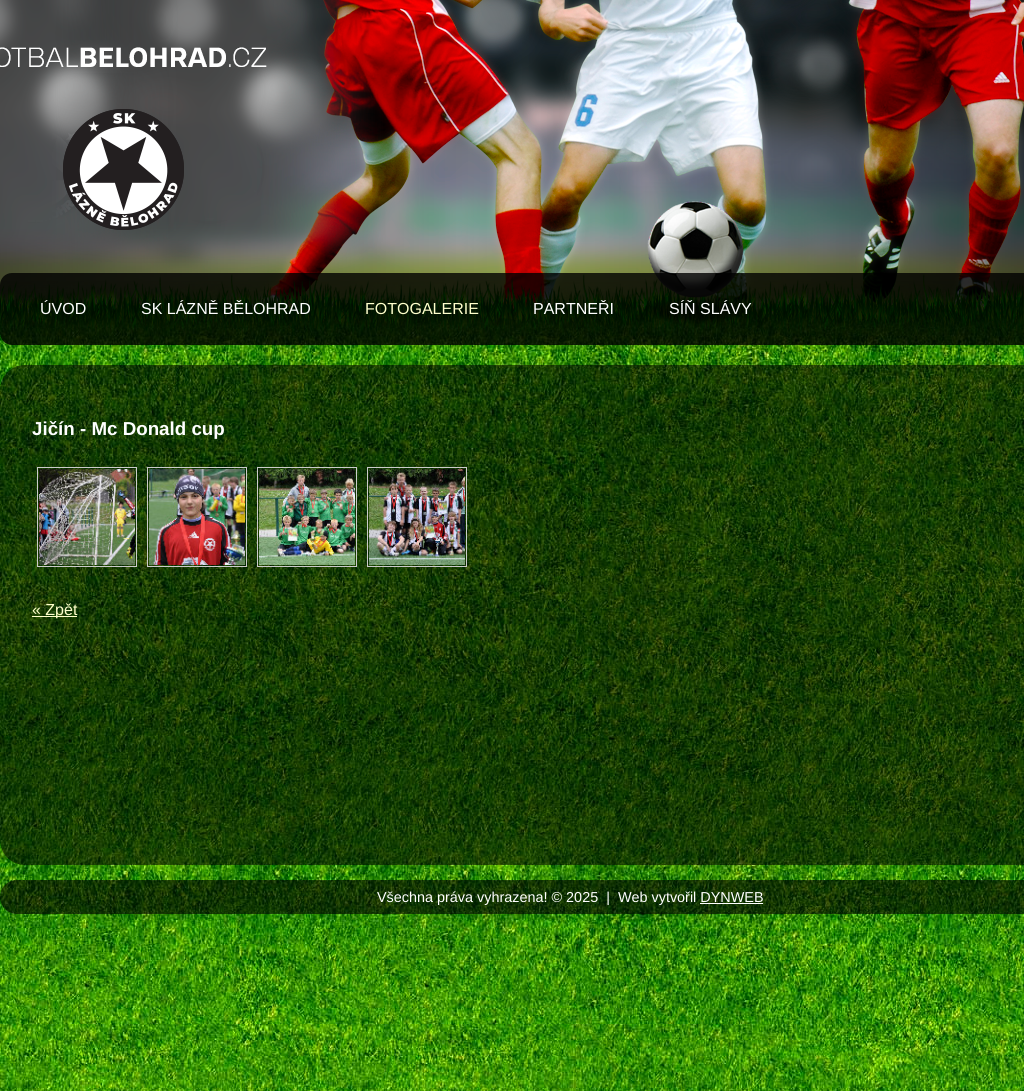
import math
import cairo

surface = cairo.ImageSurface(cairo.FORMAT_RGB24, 1024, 1091)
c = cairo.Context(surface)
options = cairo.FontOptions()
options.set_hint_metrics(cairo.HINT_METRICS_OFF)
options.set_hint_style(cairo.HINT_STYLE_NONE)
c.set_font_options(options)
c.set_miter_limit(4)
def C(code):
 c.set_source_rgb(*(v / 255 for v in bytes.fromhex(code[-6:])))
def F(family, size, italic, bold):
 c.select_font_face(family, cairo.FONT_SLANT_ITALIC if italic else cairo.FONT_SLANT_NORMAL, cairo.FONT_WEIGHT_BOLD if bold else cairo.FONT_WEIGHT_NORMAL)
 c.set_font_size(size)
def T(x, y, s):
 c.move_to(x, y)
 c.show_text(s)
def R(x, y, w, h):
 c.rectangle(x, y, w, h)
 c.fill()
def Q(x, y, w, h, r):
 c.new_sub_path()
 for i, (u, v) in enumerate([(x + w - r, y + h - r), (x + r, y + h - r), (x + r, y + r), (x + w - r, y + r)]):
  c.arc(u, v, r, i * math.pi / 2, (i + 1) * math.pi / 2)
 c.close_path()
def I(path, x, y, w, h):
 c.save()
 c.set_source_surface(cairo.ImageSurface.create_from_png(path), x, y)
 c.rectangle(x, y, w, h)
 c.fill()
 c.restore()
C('ffffff')
c.paint()
I('1.png',0,281,1024,810)
I('2.png',0,0,1024,342)
c.set_source_rgba(0,0,0,0.8)
Q(0,273,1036,72,12)
c.fill()
F('Liberation Sans',16,0,0)
C('ffffff')
T(40,314,'ÚVOD')
T(141,314,'SK LÁZNĚ BĚLOHRAD')
C('ffffcc')
T(365,314,'FOTOGALERIE')
C('ffffff')
T(533,314,'PARTNEŘI')
T(669,314,'SÍŇ SLÁVY')
c.set_source_rgba(0,0,0,0.55)
Q(0,365,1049,500,25)
c.fill()
F('Liberation Sans',18.75,0,1)
C('ffffff')
T(32,435,'Jičín - Mc Donald cup')
c.rectangle(37.5,467.5,99,99)
C('cccccc')
c.set_line_width(1)
c.stroke()
I('3.png',39,469,96,96)
c.rectangle(147.5,467.5,99,99)
c.stroke()
I('4.png',149,469,96,96)
c.rectangle(257.5,467.5,99,99)
c.stroke()
I('5.png',259,469,96,96)
c.rectangle(367.5,467.5,99,99)
c.stroke()
I('6.png',369,469,96,96)
C('ffffcc')
R(32,616,45,1)
F('Liberation Sans',16,0,0)
T(32,615,'« Zpět')
c.set_source_rgba(0,0,0,0.6)
Q(0,880,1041,34,17)
c.fill()
F('Liberation Sans',14.4,0,0)
C('ffffff')
T(377,902,'Všechna práva vyhrazena! © 2025  |  Web vytvořil DYNWEB')
R(700,903,63,1)
surface.write_to_png('o.png')
